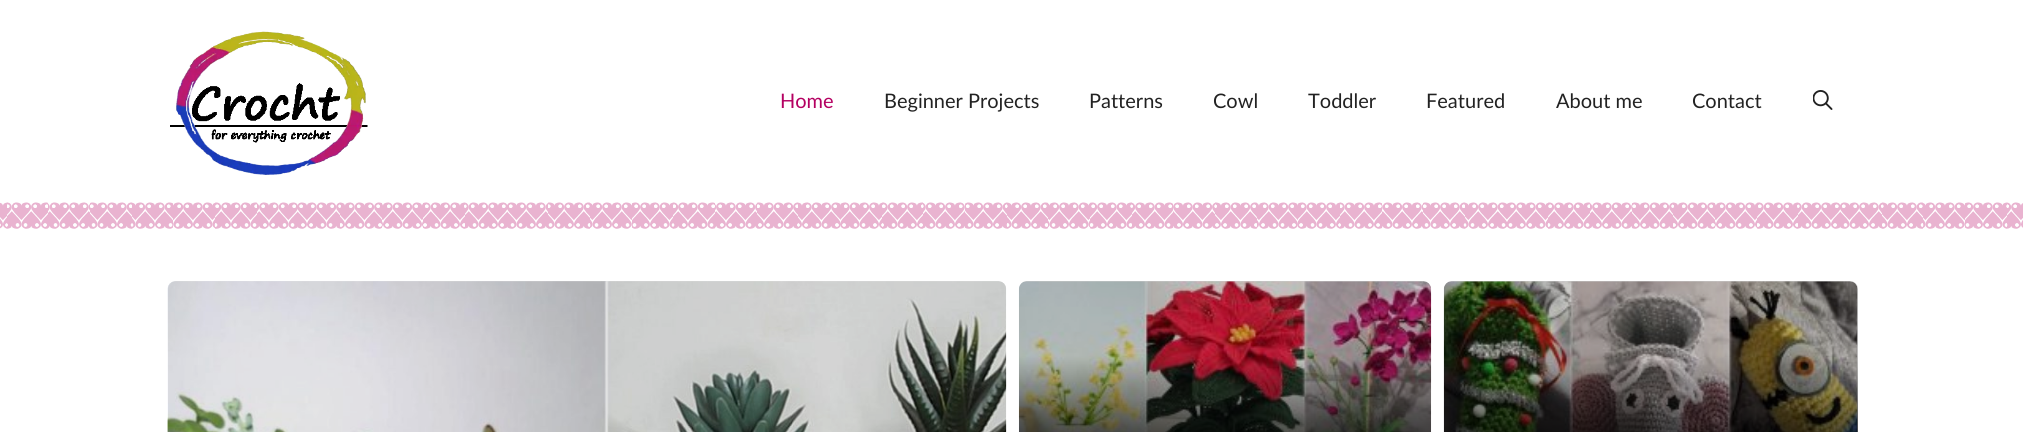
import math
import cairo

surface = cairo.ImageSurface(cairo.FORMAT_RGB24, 2023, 432)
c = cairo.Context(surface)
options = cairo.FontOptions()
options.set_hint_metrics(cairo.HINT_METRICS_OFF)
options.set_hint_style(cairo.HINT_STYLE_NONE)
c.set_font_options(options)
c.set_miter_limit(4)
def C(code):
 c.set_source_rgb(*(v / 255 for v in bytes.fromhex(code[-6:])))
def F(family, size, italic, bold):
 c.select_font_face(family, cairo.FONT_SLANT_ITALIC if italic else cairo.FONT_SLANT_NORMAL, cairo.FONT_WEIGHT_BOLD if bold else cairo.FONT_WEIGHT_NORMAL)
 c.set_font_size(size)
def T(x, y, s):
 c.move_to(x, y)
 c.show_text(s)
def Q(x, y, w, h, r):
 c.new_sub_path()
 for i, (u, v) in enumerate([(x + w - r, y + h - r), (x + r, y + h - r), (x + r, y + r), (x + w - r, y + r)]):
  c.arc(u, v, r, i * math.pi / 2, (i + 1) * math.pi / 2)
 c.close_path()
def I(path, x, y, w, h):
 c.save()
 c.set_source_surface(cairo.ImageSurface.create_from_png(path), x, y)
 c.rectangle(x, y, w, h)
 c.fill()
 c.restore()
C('ffffff')
c.paint()
I('1.png',170,31,198,144)
F('Lato',20,0,0)
C('b40061')
T(780,108,'Home')
C('222222')
T(884,108,'Beginner Projects')
T(1089,108,'Patterns')
T(1213,108,'Cowl')
T(1308,108,'Toddler')
T(1426,108,'Featured')
T(1556,108,'About me')
T(1692,108,'Contact')
I('2.png',1813,90,20,20)
I('3.png',0,202,2023,27)
I('4.png',167,281,840,151)
I('5.png',167,281,840,151)
gradient = cairo.LinearGradient(587,281,587,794)
gradient.add_color_stop_rgba(.5,0,0,0,.1)
gradient.add_color_stop_rgba(.8,0,0,0,.8)
c.set_source(gradient)
Q(168,281,838,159,8)
c.fill()
I('6.png',1018,281,414,151)
gradient = cairo.LinearGradient(1225,281,1225,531)
gradient.add_color_stop_rgba(.3,0,0,0,.2)
gradient.add_color_stop_rgba(.7,0,0,0,.8)
c.set_source(gradient)
Q(1019,281,412,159,8)
c.fill()
I('7.png',1443,281,415,151)
gradient = cairo.LinearGradient(1651,281,1651,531)
gradient.add_color_stop_rgba(.3,0,0,0,.2)
gradient.add_color_stop_rgba(.7,0,0,0,.8)
c.set_source(gradient)
Q(1444,281,414,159,8)
c.fill()
surface.write_to_png('o.png')
